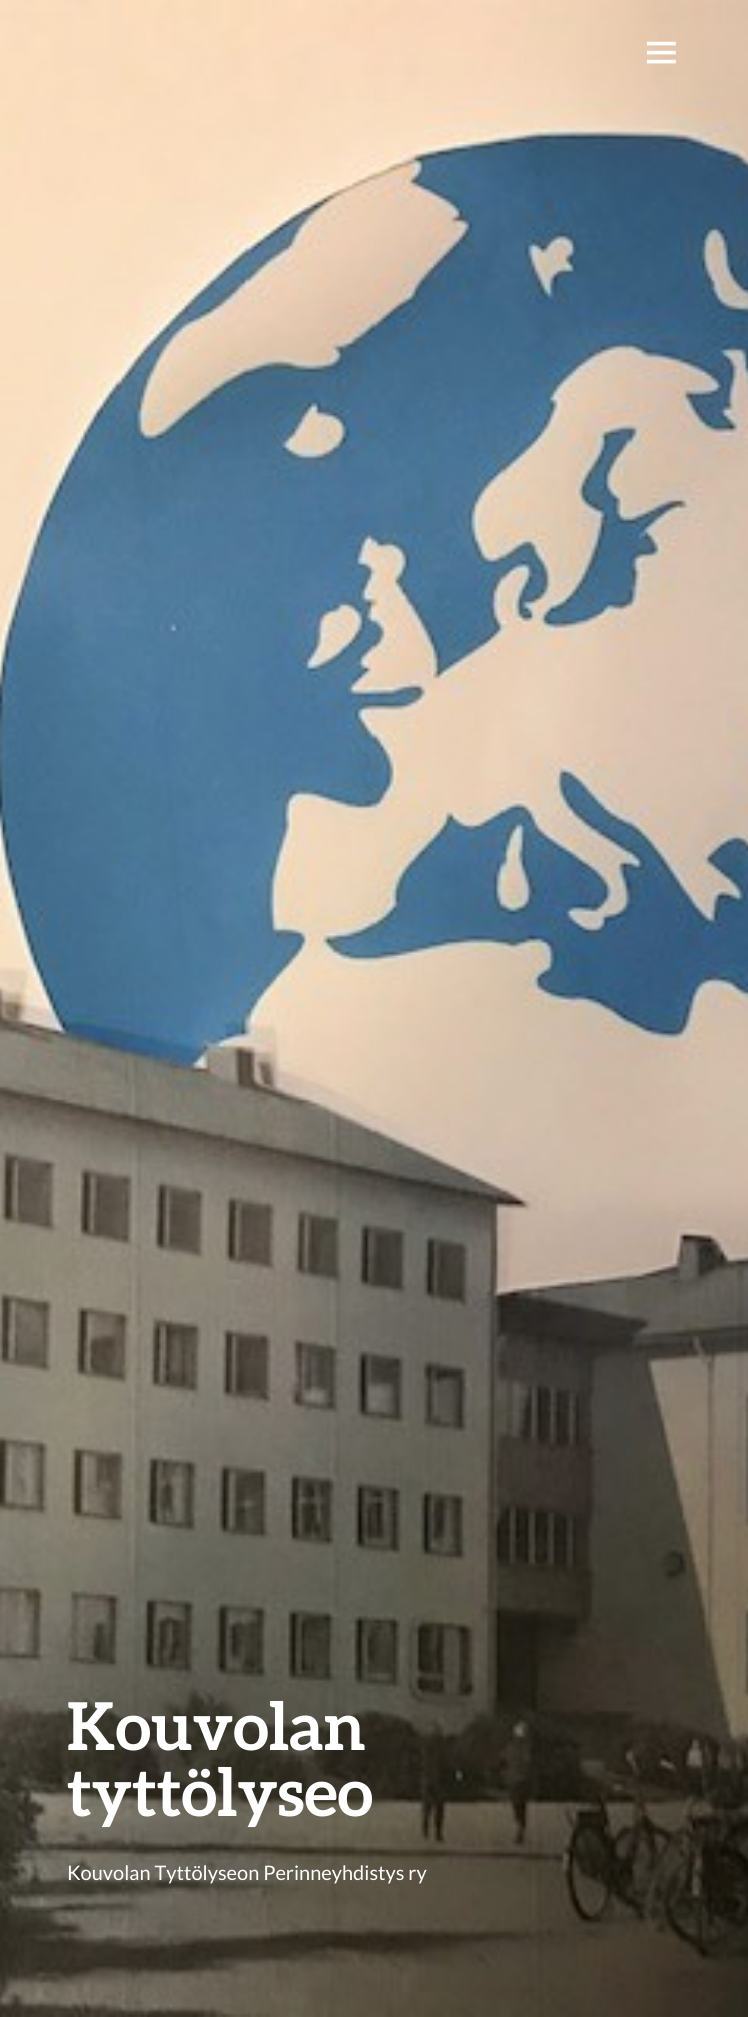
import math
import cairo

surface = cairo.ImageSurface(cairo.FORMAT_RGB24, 748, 2017)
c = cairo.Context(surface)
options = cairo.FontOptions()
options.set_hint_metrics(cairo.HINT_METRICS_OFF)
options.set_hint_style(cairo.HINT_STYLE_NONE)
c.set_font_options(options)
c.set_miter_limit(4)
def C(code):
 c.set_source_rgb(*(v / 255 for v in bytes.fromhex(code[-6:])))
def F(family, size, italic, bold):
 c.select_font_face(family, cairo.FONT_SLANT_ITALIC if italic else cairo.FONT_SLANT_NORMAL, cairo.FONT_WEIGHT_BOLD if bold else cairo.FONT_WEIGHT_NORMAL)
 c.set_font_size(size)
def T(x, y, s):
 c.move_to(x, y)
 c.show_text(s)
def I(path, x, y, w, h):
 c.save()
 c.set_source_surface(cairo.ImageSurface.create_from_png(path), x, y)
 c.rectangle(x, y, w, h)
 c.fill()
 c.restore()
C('ffffff')
c.paint()
I('2.png',0,0,748,2017)
I('1.png',647,41,29,23)
F('Aleo',66,0,1)
C('ffffff')
T(67,1750,'Kouvolan')
T(67,1816,'tyttölyseo')
F('Lato',20,0,0)
T(67,1880,'Kouvolan Tyttölyseon Perinneyhdistys ry')
surface.write_to_png('o.png')
